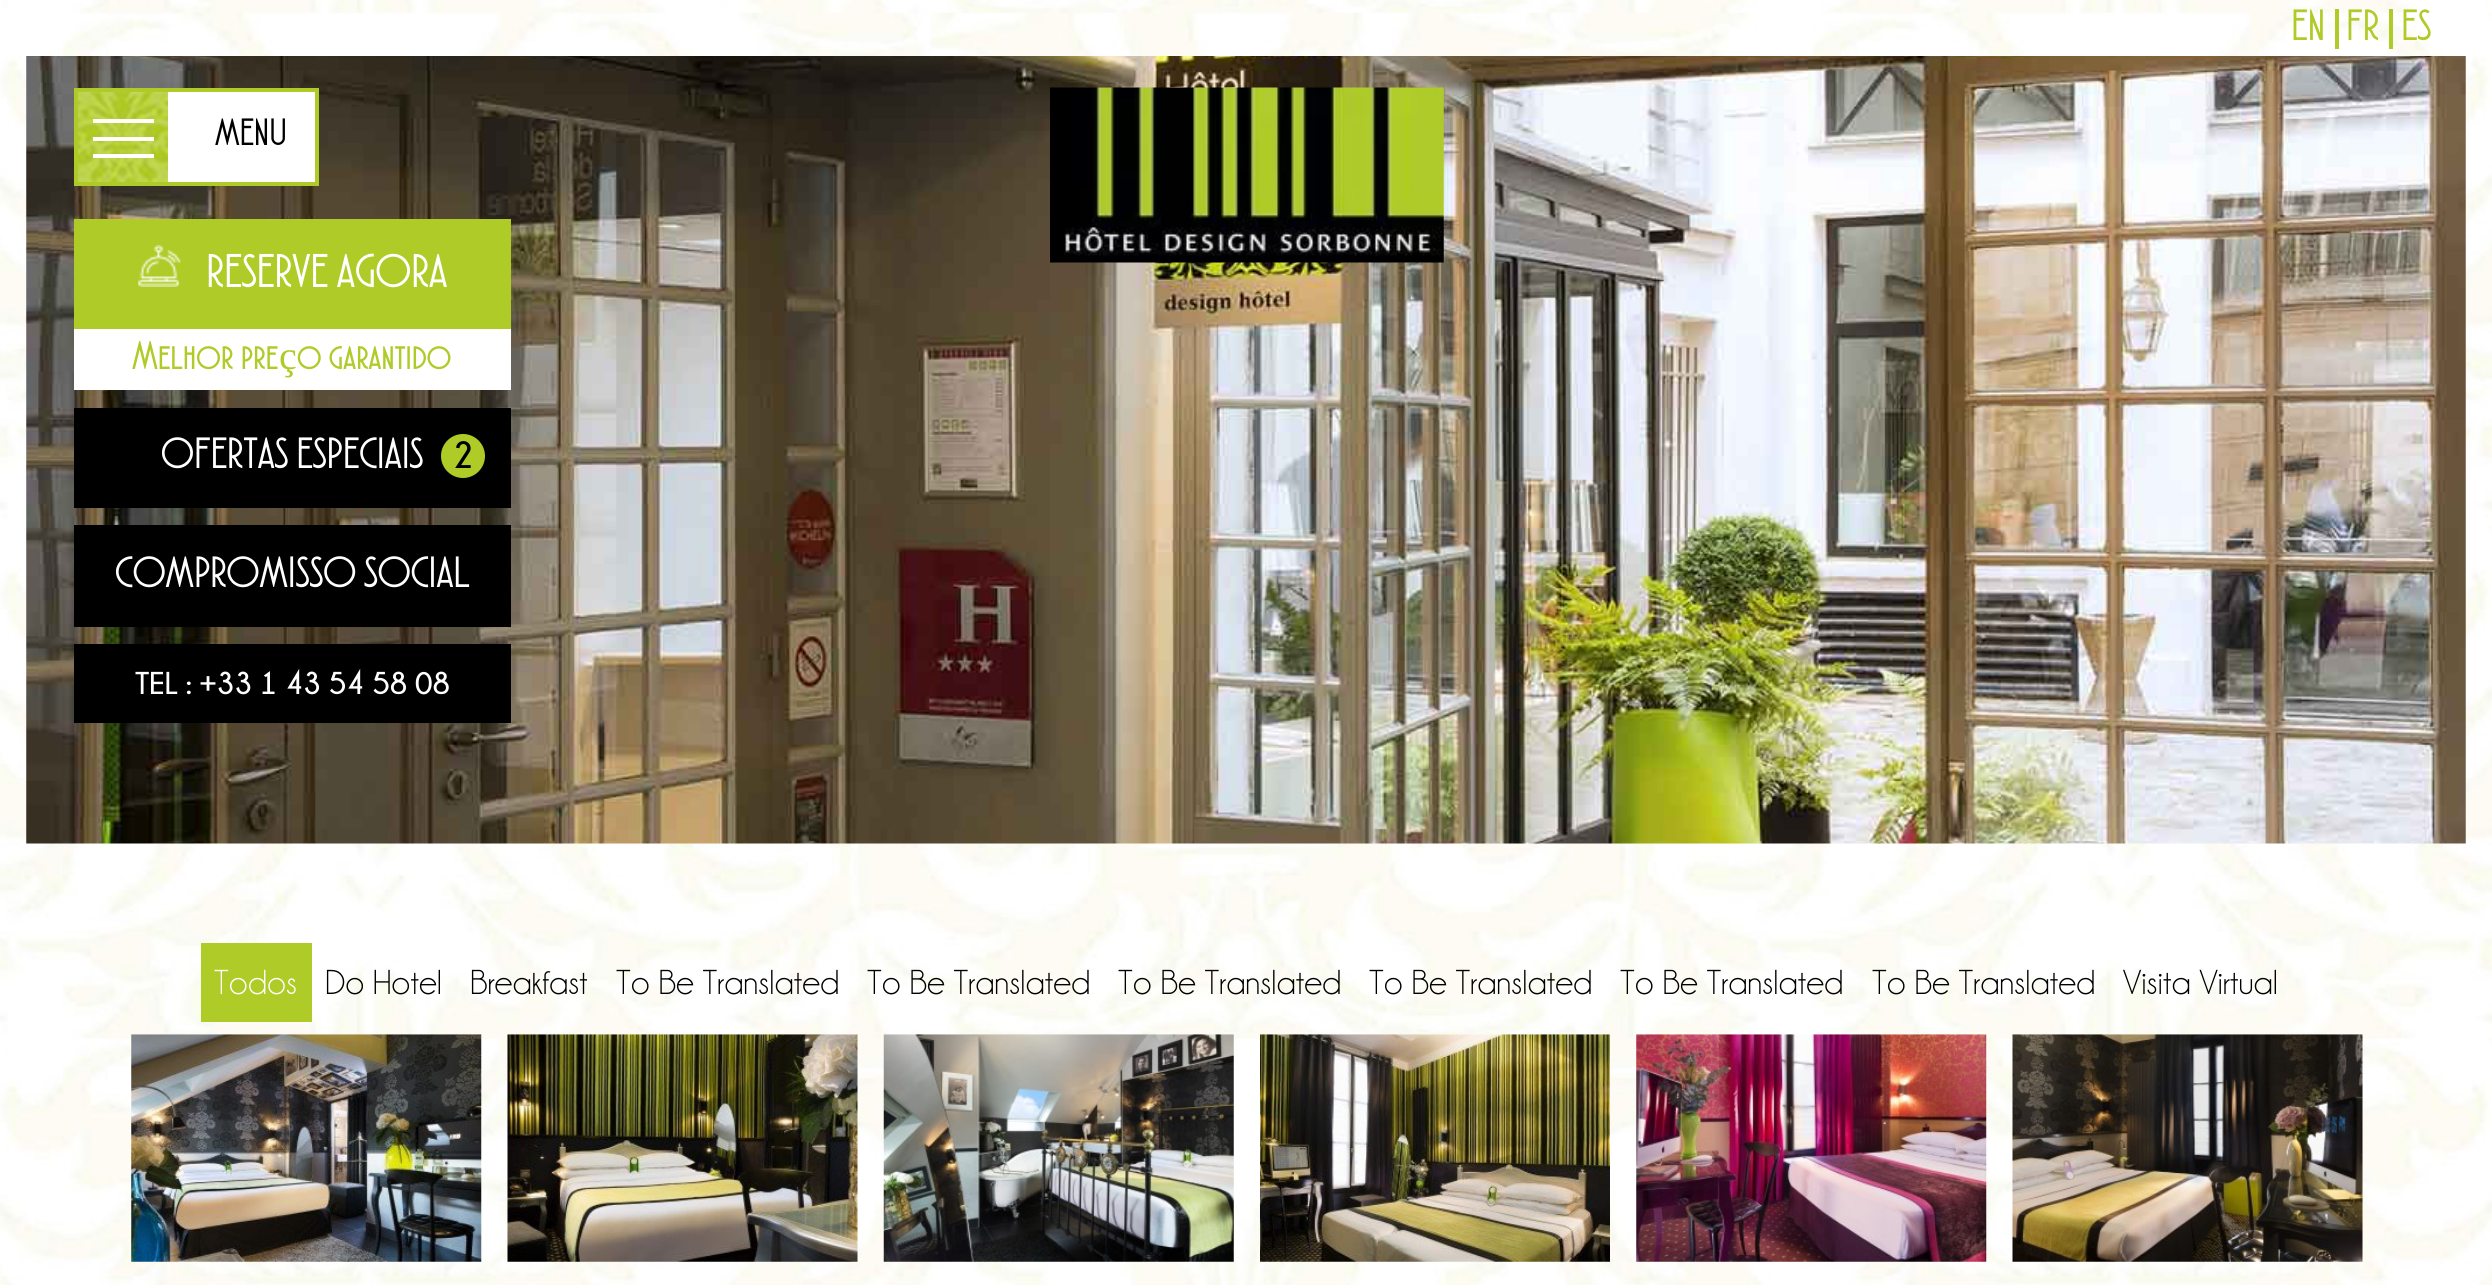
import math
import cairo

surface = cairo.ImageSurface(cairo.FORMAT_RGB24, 2492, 1285)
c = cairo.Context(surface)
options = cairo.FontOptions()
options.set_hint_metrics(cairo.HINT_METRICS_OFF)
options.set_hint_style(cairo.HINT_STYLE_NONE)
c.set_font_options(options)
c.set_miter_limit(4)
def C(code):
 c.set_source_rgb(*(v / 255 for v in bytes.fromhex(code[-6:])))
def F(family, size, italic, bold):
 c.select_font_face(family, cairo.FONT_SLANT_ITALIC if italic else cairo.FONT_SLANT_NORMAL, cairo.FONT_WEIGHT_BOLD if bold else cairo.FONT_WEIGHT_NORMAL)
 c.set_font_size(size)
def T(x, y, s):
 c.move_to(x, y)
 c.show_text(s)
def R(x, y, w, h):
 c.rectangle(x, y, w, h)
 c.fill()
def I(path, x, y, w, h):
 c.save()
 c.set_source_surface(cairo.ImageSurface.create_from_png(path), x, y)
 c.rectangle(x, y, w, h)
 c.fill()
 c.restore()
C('ffffff')
c.paint()
I('1.png',0,0,2492,1285)
F('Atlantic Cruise',43.75,1,0)
C('afcb27')
T(2291,40,'EN')
R(2335,9,4,40)
T(2346,40,'FR')
R(2389,9,4,40)
T(2401,40,'ES')
I('5.png',26,56,2440,788)
C('ffffff')
R(168,92,147,90)
I('2.png',78,92,90,90)
c.rectangle(76,90,241,94)
C('afcb27')
c.set_line_width(4)
c.stroke()
C('ffffff')
R(93,119,61,4)
R(93,137,61,4)
R(93,154,61,4)
F('Atlantic Cruise',38,1,0)
C('000000')
T(215,145,'MENU')
I('3.png',1050,87,394,176)
C('afcb27')
R(74,219,437,110)
I('4.png',138,245,43,42)
F('Atlantic Cruise',47.25,1,0)
C('ffffff')
T(206,287,'RESERVE AGORA')
R(74,329,437,61)
F('Atlantic Cruise',40,1,0)
C('afcb27')
T(132,369,'Melhor pre')
F('Liberation Serif',40,0,0)
T(279,369,'ç')
F('Atlantic Cruise',40,1,0)
T(297,369,'o garantido')
C('000000')
R(74,408,437,100)
F('Atlantic Cruise',43.75,1,0)
C('ffffff')
T(161,468,'OFERTAS ESPECIAIS')
C('afcb27')
c.new_path()
c.arc(463,456,22,0,2 * math.pi)
c.fill()
F('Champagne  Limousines',38,0,1)
C('000000')
T(452,468,'2')
R(74,525,437,102)
F('Atlantic Cruise',43.75,1,0)
C('ffffff')
T(115,587,'COMPROMISSO SOCIAL')
C('000000')
R(74,644,437,79)
F('Champagne  Limousines',31.5,0,1)
C('ffffff')
T(135,694,'TEL : +33 1 43 54 58 08')
C('afcb27')
R(201,943,111,79)
F('Champagne  Limousines',35,0,0)
C('ffffff')
T(214,994,'Todos')
C('000000')
T(325,994,'Do Hotel')
T(470,994,'Breakfast')
T(616,994,'To Be Translated')
T(867,994,'To Be Translated')
T(1118,994,'To Be Translated')
T(1369,994,'To Be Translated')
T(1620,994,'To Be Translated')
T(1872,994,'To Be Translated')
T(2123,994,'Visita Virtual')
I('6.png',131,1034,351,228)
I('7.png',507,1034,351,228)
I('8.png',883,1034,351,228)
I('9.png',1260,1034,350,228)
I('10.png',1636,1034,351,228)
I('11.png',2012,1034,351,228)
surface.write_to_png('o.png')
